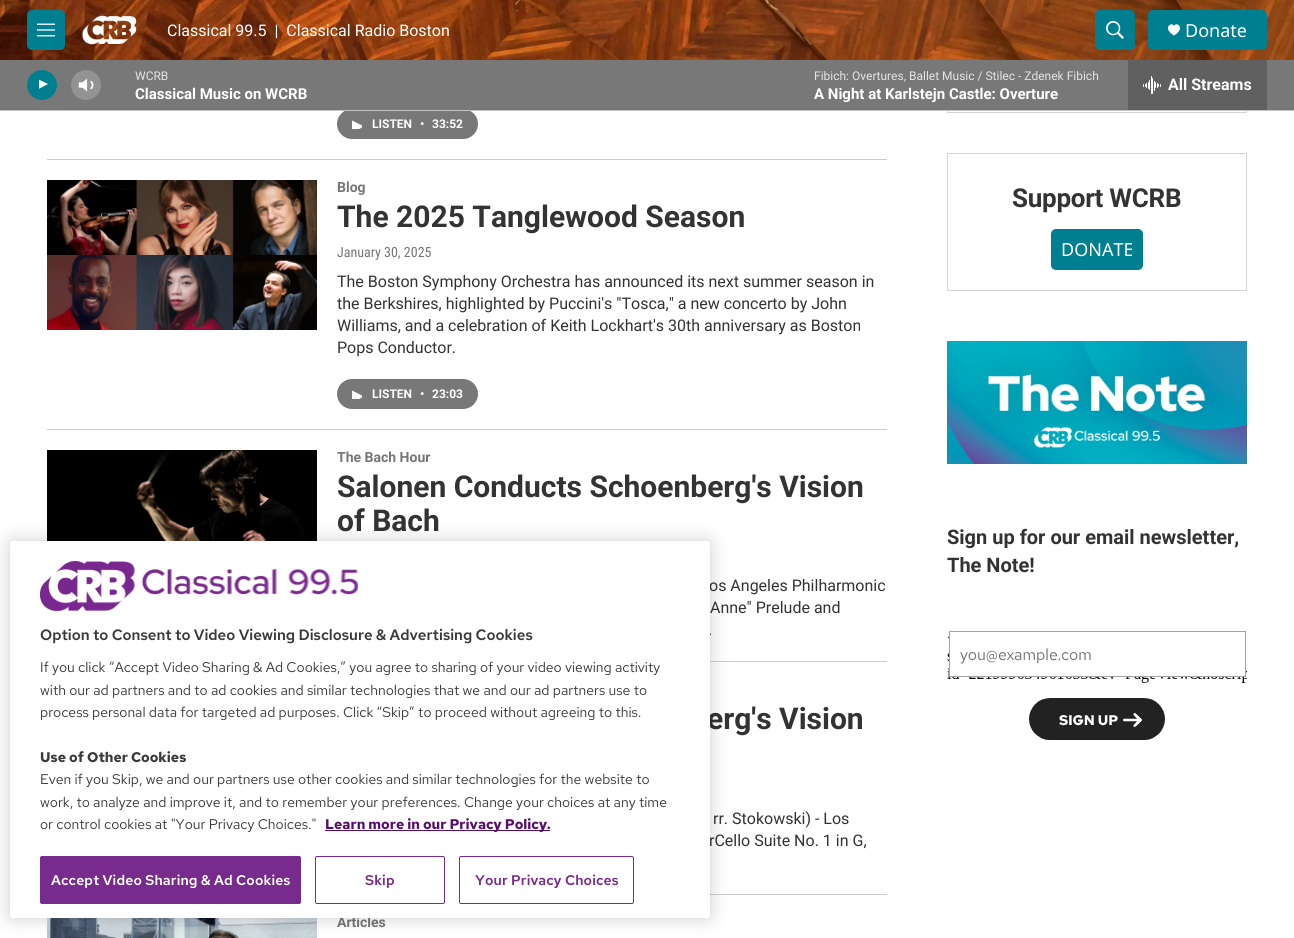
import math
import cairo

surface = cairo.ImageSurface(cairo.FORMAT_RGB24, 1294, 938)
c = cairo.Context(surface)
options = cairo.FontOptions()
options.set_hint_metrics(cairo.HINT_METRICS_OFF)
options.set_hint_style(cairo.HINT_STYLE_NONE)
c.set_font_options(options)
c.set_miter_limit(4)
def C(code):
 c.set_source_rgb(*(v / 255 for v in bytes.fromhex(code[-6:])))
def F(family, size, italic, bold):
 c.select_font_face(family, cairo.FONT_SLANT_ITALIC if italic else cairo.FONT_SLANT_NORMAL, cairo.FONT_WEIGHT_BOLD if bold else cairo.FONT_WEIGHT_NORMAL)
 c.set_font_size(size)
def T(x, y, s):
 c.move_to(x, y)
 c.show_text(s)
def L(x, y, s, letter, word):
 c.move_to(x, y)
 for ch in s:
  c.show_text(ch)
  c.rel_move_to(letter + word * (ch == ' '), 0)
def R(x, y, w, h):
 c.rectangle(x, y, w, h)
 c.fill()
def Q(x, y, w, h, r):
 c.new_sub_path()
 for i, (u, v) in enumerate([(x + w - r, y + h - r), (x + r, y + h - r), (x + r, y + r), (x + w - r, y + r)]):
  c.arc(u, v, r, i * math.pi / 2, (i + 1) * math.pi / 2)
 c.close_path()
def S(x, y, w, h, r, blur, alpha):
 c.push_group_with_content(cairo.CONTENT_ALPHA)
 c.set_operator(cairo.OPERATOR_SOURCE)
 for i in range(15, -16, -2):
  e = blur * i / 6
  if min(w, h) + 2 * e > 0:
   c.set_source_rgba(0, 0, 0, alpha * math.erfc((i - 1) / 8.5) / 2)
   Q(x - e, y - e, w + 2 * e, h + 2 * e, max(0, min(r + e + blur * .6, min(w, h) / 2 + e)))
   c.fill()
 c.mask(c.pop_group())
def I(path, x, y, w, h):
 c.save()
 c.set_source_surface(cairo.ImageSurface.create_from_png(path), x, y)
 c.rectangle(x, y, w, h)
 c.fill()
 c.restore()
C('ffffff')
c.paint()
C('787878')
Q(337,109,141,30,15)
c.fill()
c.rectangle(947.5,-.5,299,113)
C('d3d3d3')
c.set_line_width(1)
c.stroke()
C('c2c2c2')
R(0,110,1294,1)
I('1.png',0,0,1294,60)
C('007f91')
Q(27,10,38,40,5)
c.fill()
I('2.png',37,23,18,14)
I('3.png',82,15,55,30)
F('Roboto',16,0,0)
C('ffffff')
T(167,36,'Classical 99.5  |  Classical Radio Boston')
C('007f91')
Q(1095,10,40,40,5)
c.fill()
I('4.png',1106,21,18,18)
Q(1148,10,119,40,5)
c.fill()
C('ffffff')
c.new_path()
c.move_to(1174,26)
c.curve_to(1172,21,1161.5,28,1174,35.5)
c.curve_to(1186.5,28,1176,21,1174,26)
c.close_path()
c.fill()
F('Noto Sans',18,0,0)
T(1185,37,'Donate')
C('787878')
R(0,60,1294,50)
C('007f91')
c.new_path()
c.arc(42,85,15,0,2 * math.pi)
c.fill()
c.save()
c.rectangle(39,78,12,15)
c.clip()
C('ffffff')
c.new_path()
c.move_to(38.5,79.5)
c.line_to(48,84)
c.line_to(38.5,89)
c.close_path()
c.fill()
c.restore()
I('5.png',78,78,16,14)
c.set_source_rgba(1,1,1,0.2)
c.arc(86,85,15,0,2 * math.pi)
c.fill()
F('Roboto',12,0,0)
C('e4e4e4')
T(135,80,'WCRB')
F('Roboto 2',15,0,1)
C('ffffff')
T(135,99,'Classical Music on WCRB')
F('Roboto',12,0,0)
C('e4e4e4')
T(814,80,'Fibich: Overtures, Ballet Music / Stilec - Zdenek Fibich')
F('Roboto 2',15,0,1)
C('ffffff')
T(814,99,'A Night at Karlstejn Castle: Overture')
C('606060')
R(1128,60,139,50)
I('6.png',1143,76,18,18)
F('Roboto 2',16,0,1)
C('ffffff')
T(1168,90,'All Streams')
C('cccccc')
R(47,159,840,1)
c.save()
c.rectangle(352,119,10,10)
c.clip()
C('ffffff')
c.new_path()
c.move_to(352,120.5)
c.line_to(364,126.5)
c.line_to(352,132.5)
c.close_path()
c.fill()
c.restore()
F('Roboto 2',12,0,1)
C('ffffff')
T(372,128,'LISTEN')
T(420,128,'•')
T(432,128,'33:52')
C('cccccc')
R(47,429,840,1)
I('7.png',47,180,270,150)
F('Roboto',14,0,1)
C('767676')
T(337,192,'Blog')
F('Roboto',30,0,1)
C('333333')
T(337,227,'The 2025 Tanglewood Season')
F('Roboto Condensed',14,0,0)
C('767676')
T(337,257,'January 30, 2025')
F('Roboto',16,0,0)
C('333333')
T(337,287,'The Boston Symphony Orchestra has announced its next summer season in')
T(337,309,'the Berkshires, highlighted by Puccini\'s "Tosca," a new concerto by John')
T(337,331,'Williams, and a celebration of Keith Lockhart\'s 30th anniversary as Boston')
T(337,353,'Pops Conductor.')
C('787878')
Q(337,379,141,30,15)
c.fill()
c.save()
c.rectangle(352,389,10,10)
c.clip()
C('ffffff')
c.new_path()
c.move_to(352,390.5)
c.line_to(364,396.5)
c.line_to(352,402.5)
c.close_path()
c.fill()
c.restore()
F('Roboto 2',12,0,1)
C('ffffff')
T(372,398,'LISTEN')
T(420,398,'•')
T(432,398,'23:03')
C('cccccc')
R(710,661,177,1)
I('8.png',47,450,270,91)
F('Roboto',14,0,1)
C('767676')
T(337,462,'The Bach Hour')
F('Roboto',30,0,1)
C('333333')
T(337,497,'Salonen Conducts Schoenberg\'s Vision')
T(337,531,'of Bach')
F('Roboto',16,0,0)
T(709,591,'os Angeles Philharmonic')
T(710,613,'Anne" Prelude and')
T(708,635,'.')
C('cccccc')
R(710,894,177,1)
F('Roboto',30,0,1)
C('333333')
T(707,729,'erg\'s Vision')
F('Roboto',16,0,0)
T(713,824,'rr. Stokowski) - Los')
T(709,846,'rCello Suite No. 1 in G,')
I('9.png',47,918,270,20)
F('Roboto',14,0,1)
C('767676')
T(337,927,'Articles')
c.rectangle(947.5,153.5,299,137)
C('d3d3d3')
c.stroke()
F('Roboto',26,0,1)
C('333333')
L(1012,207,'Support WCRB',-.25,0)
C('007f91')
Q(1051,229,92,41,5)
c.fill()
F('Noto Sans',18,0,0)
C('ffffff')
T(1061,256,'DONATE')
I('10.png',947,341,300,123)
F('Roboto 2',20,0,1)
C('333333')
T(947,544,'Sign up for our email newsletter,')
T(947,572,'The Note!')
I('11.png',947,631,300,109)
C('000000')
S(10,541,700,377,2.5,9,.2)
C('ffffff')
Q(10,541,700,377,2.5)
c.fill()
I('12.png',40,561,318,50)
F('Red Hat Text SemiBold',15,0,0)
C('38393b')
T(40,640,'Option to Consent to Video Viewing Disclosure & Advertising Cookies')
F('Red Hat Text',14,0,0)
T(40,672,'If you click “Accept Video Sharing & Ad Cookies,” you agree to sharing of your video viewing activity')
T(40,695,'with our ad partners and to ad cookies and similar technologies that we and our ad partners use to')
T(40,717,'process personal data for targeted ad purposes. Click “Skip” to proceed without agreeing to this.')
F('Red Hat Text',14,0,1)
T(40,762,'Use of Other Cookies')
F('Red Hat Text',14,0,0)
T(40,784,'Even if you Skip, we and our partners use other cookies and similar technologies for the website to')
T(40,807,'work, to analyze and improve it, and to remember your preferences. Change your choices at any time')
T(40,829,'or control cookies at "Your Privacy Choices."')
C('590e6e')
R(325,830,225,1)
F('Red Hat Text',14,0,1)
T(325,829,'Learn more in our Privacy Policy.')
C('772b8d')
Q(40.5,856.5,260,47,1.5)
c.fill_preserve()
c.stroke()
F('Red Hat Text SemiBold',14,0,0)
C('ffffff')
L(51,885,'Accept Video Sharing & Ad Cookies',.15,0)
Q(315.5,856.5,129,47,1.5)
C('772b8d')
c.stroke()
L(365,885,'Skip',.15,0)
Q(459.5,856.5,174,47,1.5)
c.stroke()
L(475,885,'Your Privacy Choices',.15,0)
surface.write_to_png('o.png')
